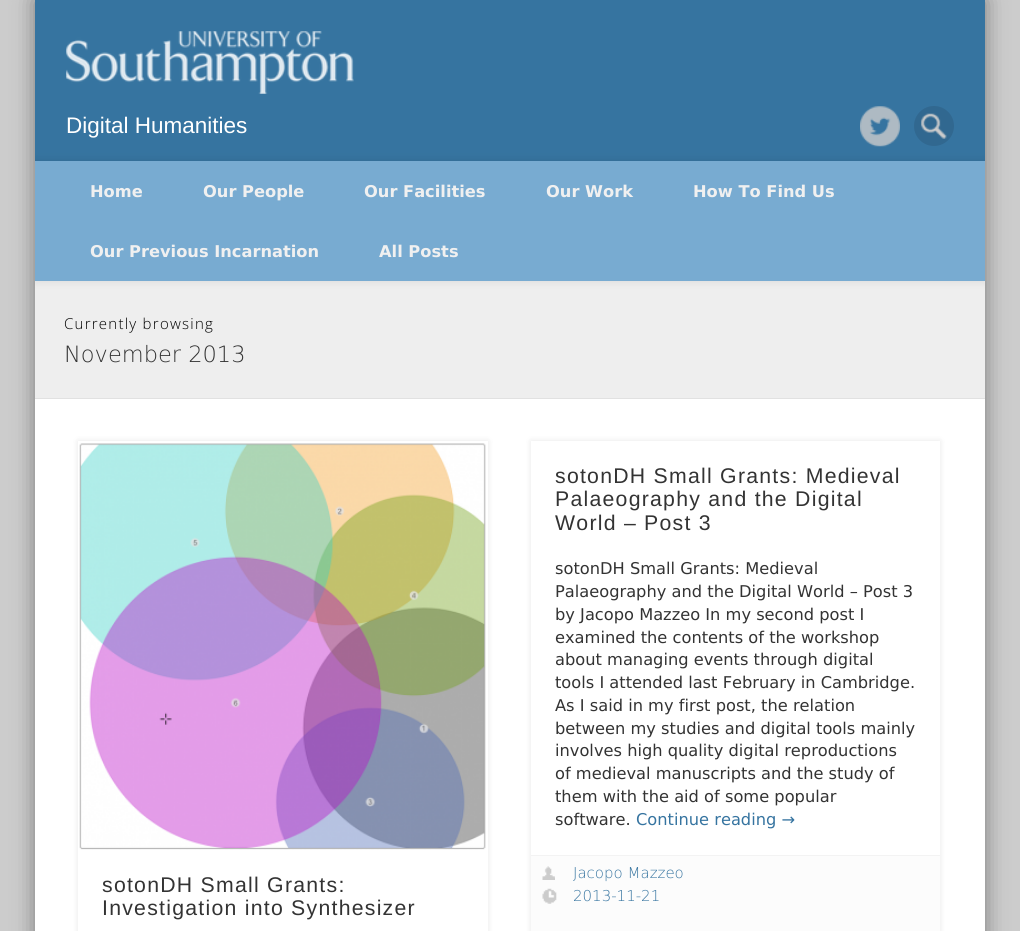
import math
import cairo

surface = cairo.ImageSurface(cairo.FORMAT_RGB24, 1020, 931)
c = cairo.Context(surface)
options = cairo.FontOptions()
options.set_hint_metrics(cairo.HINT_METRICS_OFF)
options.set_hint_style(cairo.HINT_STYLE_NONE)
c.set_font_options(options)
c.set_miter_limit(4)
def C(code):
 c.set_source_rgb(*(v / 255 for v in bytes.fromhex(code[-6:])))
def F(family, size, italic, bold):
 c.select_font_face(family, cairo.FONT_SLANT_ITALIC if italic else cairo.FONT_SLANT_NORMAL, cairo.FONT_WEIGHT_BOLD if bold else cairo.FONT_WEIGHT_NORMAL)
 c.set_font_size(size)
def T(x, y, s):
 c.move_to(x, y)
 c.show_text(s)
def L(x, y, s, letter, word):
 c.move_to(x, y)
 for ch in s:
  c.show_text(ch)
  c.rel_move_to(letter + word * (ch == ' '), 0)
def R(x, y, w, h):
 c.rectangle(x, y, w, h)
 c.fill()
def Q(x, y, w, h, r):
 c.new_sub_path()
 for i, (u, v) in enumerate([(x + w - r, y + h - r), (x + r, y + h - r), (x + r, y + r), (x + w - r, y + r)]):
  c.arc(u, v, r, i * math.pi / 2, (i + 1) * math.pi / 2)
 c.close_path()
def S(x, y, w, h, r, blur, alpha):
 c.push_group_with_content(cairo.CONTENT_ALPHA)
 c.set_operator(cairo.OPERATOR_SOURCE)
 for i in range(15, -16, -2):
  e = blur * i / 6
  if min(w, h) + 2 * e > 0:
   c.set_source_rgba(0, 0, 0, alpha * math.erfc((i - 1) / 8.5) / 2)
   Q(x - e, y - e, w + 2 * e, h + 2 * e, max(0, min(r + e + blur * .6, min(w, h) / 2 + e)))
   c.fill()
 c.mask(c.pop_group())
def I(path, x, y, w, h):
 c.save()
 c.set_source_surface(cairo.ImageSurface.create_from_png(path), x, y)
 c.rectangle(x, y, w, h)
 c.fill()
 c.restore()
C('cccccc')
c.paint()
C('000000')
S(35,0,950,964,0,11,.4)
C('ffffff')
R(35,399,950,532)
C('3674a0')
R(35,0,950,161)
I('1.png',66,31,288,63)
F('Liberation Sans',22.5,0,0)
C('ffffff')
T(66,133,'Digital Humanities')
I('2.png',860,106,40,41)
C('316890')
c.arc(934,126,20,0,2 * math.pi)
c.fill()
I('3.png',921,113,26,26)
C('eeeeee')
R(35,281,950,117)
c.save()
c.rectangle(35,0,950,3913)
c.clip()
C('000000')
S(35,161,950,120,0,4.5,.1)
c.restore()
C('78abd1')
R(35,161,950,120)
F('DejaVu Sans',16.25,0,1)
C('f0f0f0')
T(90,197,'Home')
T(203,197,'Our People')
T(364,197,'Our Facilities')
T(546,197,'Our Work')
T(693,197,'How To Find Us')
T(90,257,'Our Previous Incarnation')
T(379,257,'All Posts')
C('e1e1e1')
R(35,398,950,1)
F('Open Sans Light',15,0,0)
C('000000')
L(64,329,'Currently browsing',1.25,0)
F('DejaVu Sans ExtraLight',22.5,0,0)
C('333333')
T(64,362,'November 2013')
C('000000')
S(78,441,410,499,0,3,.1)
C('ffffff')
R(78,441,410,490)
I('4.png',79,443,407,407)
F('Liberation Sans',21.25,0,0)
C('333333')
L(102,892,'sotonDH Small Grants:',1.25,0)
L(102,915,'Investigation into Synthesizer',1.25,0)
C('000000')
S(531,441,409,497,0,3,.1)
C('ffffff')
R(531,441,409,414)
C('333333')
L(555,483,'sotonDH Small Grants: Medieval',1.25,0)
L(555,506,'Palaeography and the Digital',1.25,0)
L(555,530,'World – Post 3',1.25,0)
F('DejaVu Sans',16.25,0,0)
T(555,574,'sotonDH Small Grants: Medieval')
T(555,597,'Palaeography and the Digital World – Post 3')
T(555,620,'by Jacopo Mazzeo In my second post I')
T(555,643,'examined the contents of the workshop')
T(555,665,'about managing events through digital')
T(555,688,'tools I attended last February in Cambridge.')
T(555,711,'As I said in my first post, the relation')
T(555,734,'between my studies and digital tools mainly')
T(555,756,'involves high quality digital reproductions')
T(555,779,'of medieval manuscripts and the study of')
T(555,802,'them with the aid of some popular')
T(555,825,'software.')
C('3674a0')
T(636,825,'Continue reading →')
C('fcfcfc')
R(531,856,409,75)
C('f3f3f3')
R(531,855,409,1)
I('5.png',542,866,13,14)
F('DejaVu Sans ExtraLight',15,0,0)
C('3674a0')
T(573,878,'Jacopo Mazzeo')
I('6.png',542,888,15,16)
T(573,901,'2013-11-21')
surface.write_to_png('o.png')
